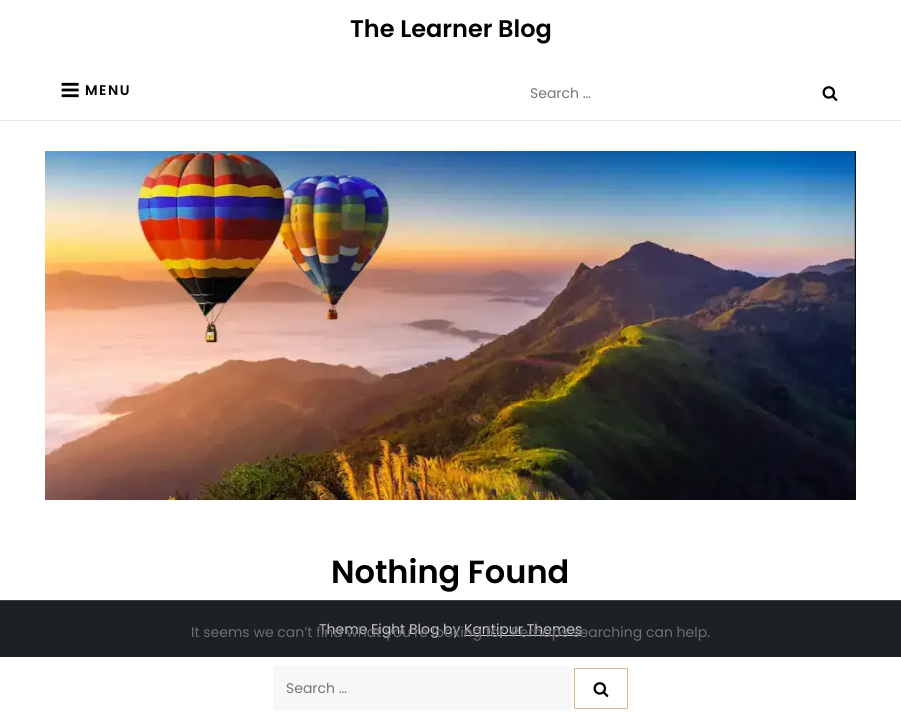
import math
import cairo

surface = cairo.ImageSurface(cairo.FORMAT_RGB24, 901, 728)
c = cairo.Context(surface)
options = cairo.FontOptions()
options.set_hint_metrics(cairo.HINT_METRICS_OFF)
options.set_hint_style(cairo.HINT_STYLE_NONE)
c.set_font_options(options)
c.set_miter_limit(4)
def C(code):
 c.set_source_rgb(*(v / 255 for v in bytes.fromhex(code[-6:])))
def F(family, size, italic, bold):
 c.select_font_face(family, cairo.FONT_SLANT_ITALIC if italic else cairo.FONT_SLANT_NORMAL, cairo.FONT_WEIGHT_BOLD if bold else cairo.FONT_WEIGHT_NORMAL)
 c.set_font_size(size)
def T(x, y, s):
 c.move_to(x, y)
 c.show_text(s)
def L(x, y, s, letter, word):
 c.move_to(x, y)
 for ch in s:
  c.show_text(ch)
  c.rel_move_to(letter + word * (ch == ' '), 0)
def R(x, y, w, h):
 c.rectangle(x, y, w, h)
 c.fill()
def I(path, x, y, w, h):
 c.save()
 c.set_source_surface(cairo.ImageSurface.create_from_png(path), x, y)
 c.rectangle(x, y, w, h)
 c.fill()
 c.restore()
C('ffffff')
c.paint()
C('e6e6e6')
R(0,120,901,1)
F('Poppins SemiBold',24,0,0)
C('000000')
T(350,37,'The Learner Blog')
I('1.png',61,82,18,16)
F('Poppins SemiBold',14,0,0)
L(85,95,'MENU',1.5,0)
F('Poppins',14,0,0)
C('757575')
T(530,98,'Search …')
I('2.png',822,86,16,15)
I('3.png',45,151,811,349)
F('Poppins SemiBold',32,0,0)
C('000000')
T(331,583,'Nothing Found')
C('1d2024')
R(0,601,901,56)
F('Poppins',14,0,0)
C('cccccc')
T(319,634,'Theme Eight Blog by')
R(464,635,118,1)
T(464,634,'Kantipur Themes')
C('6f6f6f')
T(191,637,'It seems we can’t find what you’re looking for. Perhaps searching can help.')
C('f7f7f7')
R(273,666,297,44)
C('757575')
T(286,693,'Search …')
c.rectangle(574.5,668.5,53,40)
C('ddb892')
c.set_line_width(1)
c.stroke()
I('2.png',593,682,16,15)
C('3f4145')
R(0,600,901,1)
surface.write_to_png('o.png')
